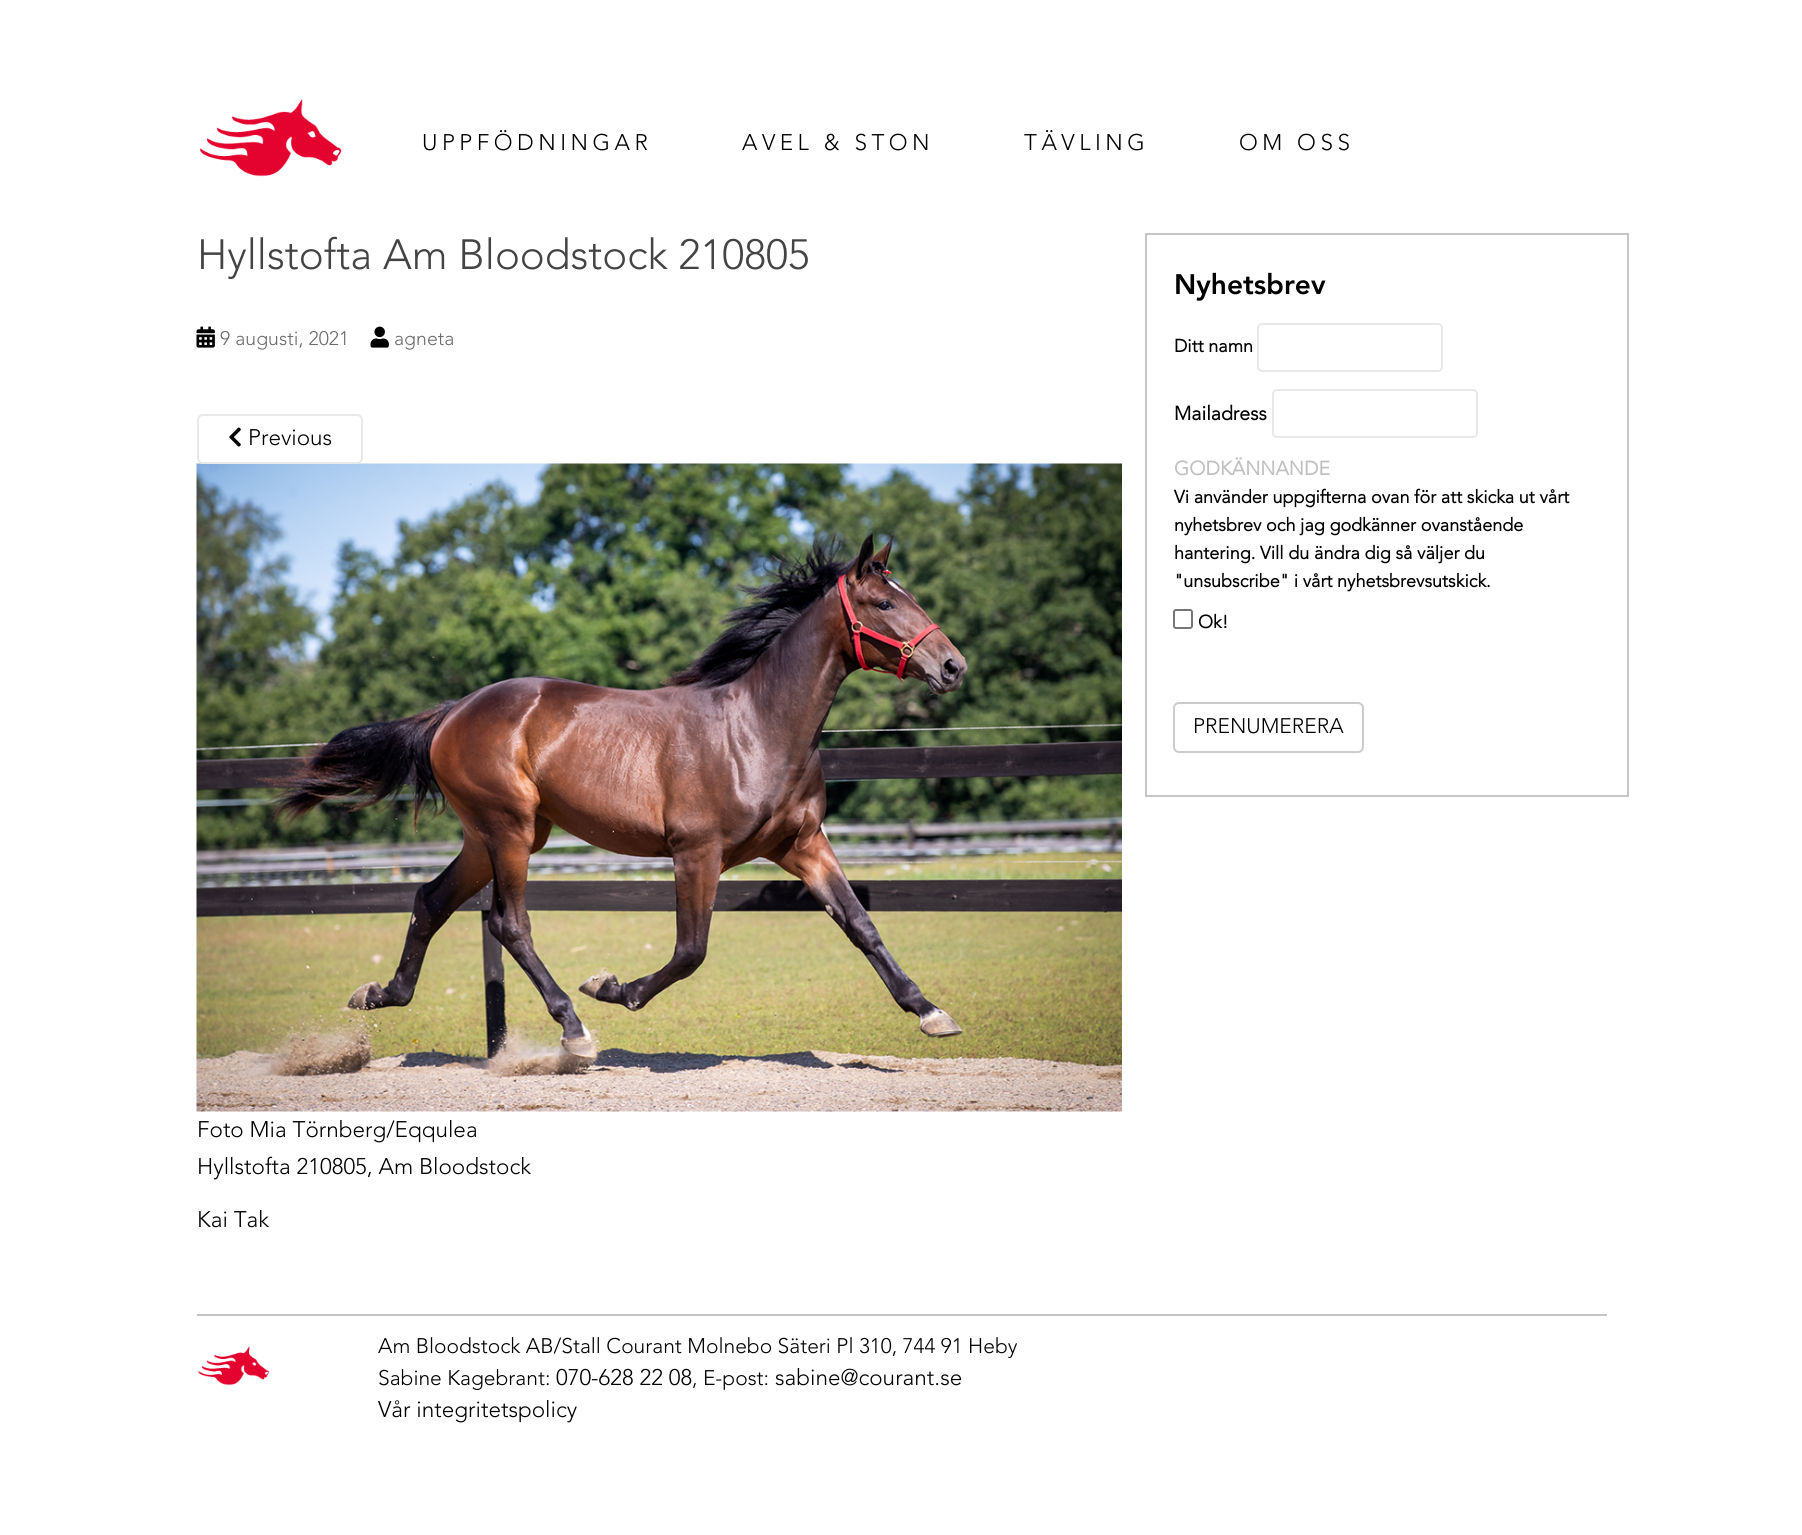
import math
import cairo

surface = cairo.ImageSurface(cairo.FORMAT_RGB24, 1802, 1535)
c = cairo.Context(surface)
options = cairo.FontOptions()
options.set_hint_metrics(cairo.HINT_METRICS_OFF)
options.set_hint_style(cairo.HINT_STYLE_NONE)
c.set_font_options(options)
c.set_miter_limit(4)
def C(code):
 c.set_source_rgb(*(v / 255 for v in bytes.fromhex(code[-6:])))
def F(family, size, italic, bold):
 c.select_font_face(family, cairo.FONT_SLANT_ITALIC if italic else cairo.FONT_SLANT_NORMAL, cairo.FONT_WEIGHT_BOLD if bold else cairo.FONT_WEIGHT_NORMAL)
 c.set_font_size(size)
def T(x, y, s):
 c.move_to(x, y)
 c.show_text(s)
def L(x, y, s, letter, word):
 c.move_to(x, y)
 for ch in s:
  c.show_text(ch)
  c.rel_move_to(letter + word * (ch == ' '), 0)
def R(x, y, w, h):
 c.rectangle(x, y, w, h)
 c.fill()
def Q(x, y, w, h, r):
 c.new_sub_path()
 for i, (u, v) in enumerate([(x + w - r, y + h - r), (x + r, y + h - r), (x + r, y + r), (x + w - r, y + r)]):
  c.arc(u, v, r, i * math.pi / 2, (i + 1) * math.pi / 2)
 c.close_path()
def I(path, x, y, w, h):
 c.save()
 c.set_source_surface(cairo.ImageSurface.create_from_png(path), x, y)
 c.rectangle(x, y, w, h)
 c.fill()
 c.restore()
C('ffffff')
c.paint()
I('1.png',200,99,142,78)
F('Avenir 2',22.5,0,0)
C('000000')
L(422,150,'UPPFÖDNINGAR',4.5,0)
L(742,150,'AVEL & STON',4.5,0)
L(1024,150,'TÄVLING',4.5,0)
L(1239,150,'OM OSS',4.5,0)
F('Avenir 2',42,0,0)
C('444444')
T(197,269,'Hyllstofta Am Bloodstock 210805')
I('2.png',196,326,19,22)
F('Avenir 2',19.5,0,0)
C('6b6b6b')
T(220,345,'9 augusti, 2021')
I('3.png',370,326,19,22)
T(394,345,'agneta')
I('5.png',196,463,926,649)
Q(198,415,164,48,5)
C('e8e8e8')
c.stroke()
I('4.png',229,427,12,20)
F('Avenir 2',22.5,0,0)
C('000000')
T(248,445,'Previous')
T(197,1137,'Foto Mia Törnberg/Eqqulea')
T(197,1174,'Hyllstofta 210805, Am Bloodstock')
T(197,1227,'Kai Tak')
c.rectangle(1146,234,482,562)
C('c6c6c6')
c.stroke()
F('Avenir',28,0,0)
C('000000')
T(1174,294,'Nyhetsbrev')
F('Avenir',18,0,1)
T(1174,352,'Ditt namn')
Q(1258,324,184,47,4)
C('e8e8e8')
c.stroke()
F('Avenir',19.5,0,1)
C('000000')
T(1174,420,'Mailadress')
Q(1273,390,204,47,4)
C('e8e8e8')
c.stroke()
C('c1c0c0')
T(1174,475,'GODKÄNNANDE')
F('Avenir',18,0,1)
C('000000')
T(1174,503,'Vi använder uppgifterna ovan för att skicka ut vårt')
T(1174,531,'nyhetsbrev och jag godkänner ovanstående')
T(1174,559,'hantering. Vill du ändra dig så väljer du')
T(1174,587,'"unsubscribe" i vårt nyhetsbrevsutskick.')
Q(1174,610,18,18,2)
C('767676')
c.stroke()
C('000000')
T(1198,628,'Ok!')
Q(1174,703,189,49,5)
C('cccccc')
c.stroke()
F('Avenir 2',21,0,0)
C('000000')
T(1193,733,'PRENUMERERA')
C('c6c6c6')
R(197,1314,1410,2)
I('6.png',198,1346,72,40)
C('000000')
T(378,1353,'Am Bloodstock AB/Stall Courant Molnebo Säteri Pl 310, 744 91 Heby')
T(378,1385,'Sabine Kagebrant:')
F('Avenir 2',22.5,0,0)
T(556,1385,'070-628 22 08')
F('Avenir 2',21,0,0)
T(692,1385,', E-post:')
F('Avenir 2',22.5,0,0)
T(775,1385,'sabine@courant.se')
T(378,1417,'Vår integritetspolicy')
surface.write_to_png('o.png')
